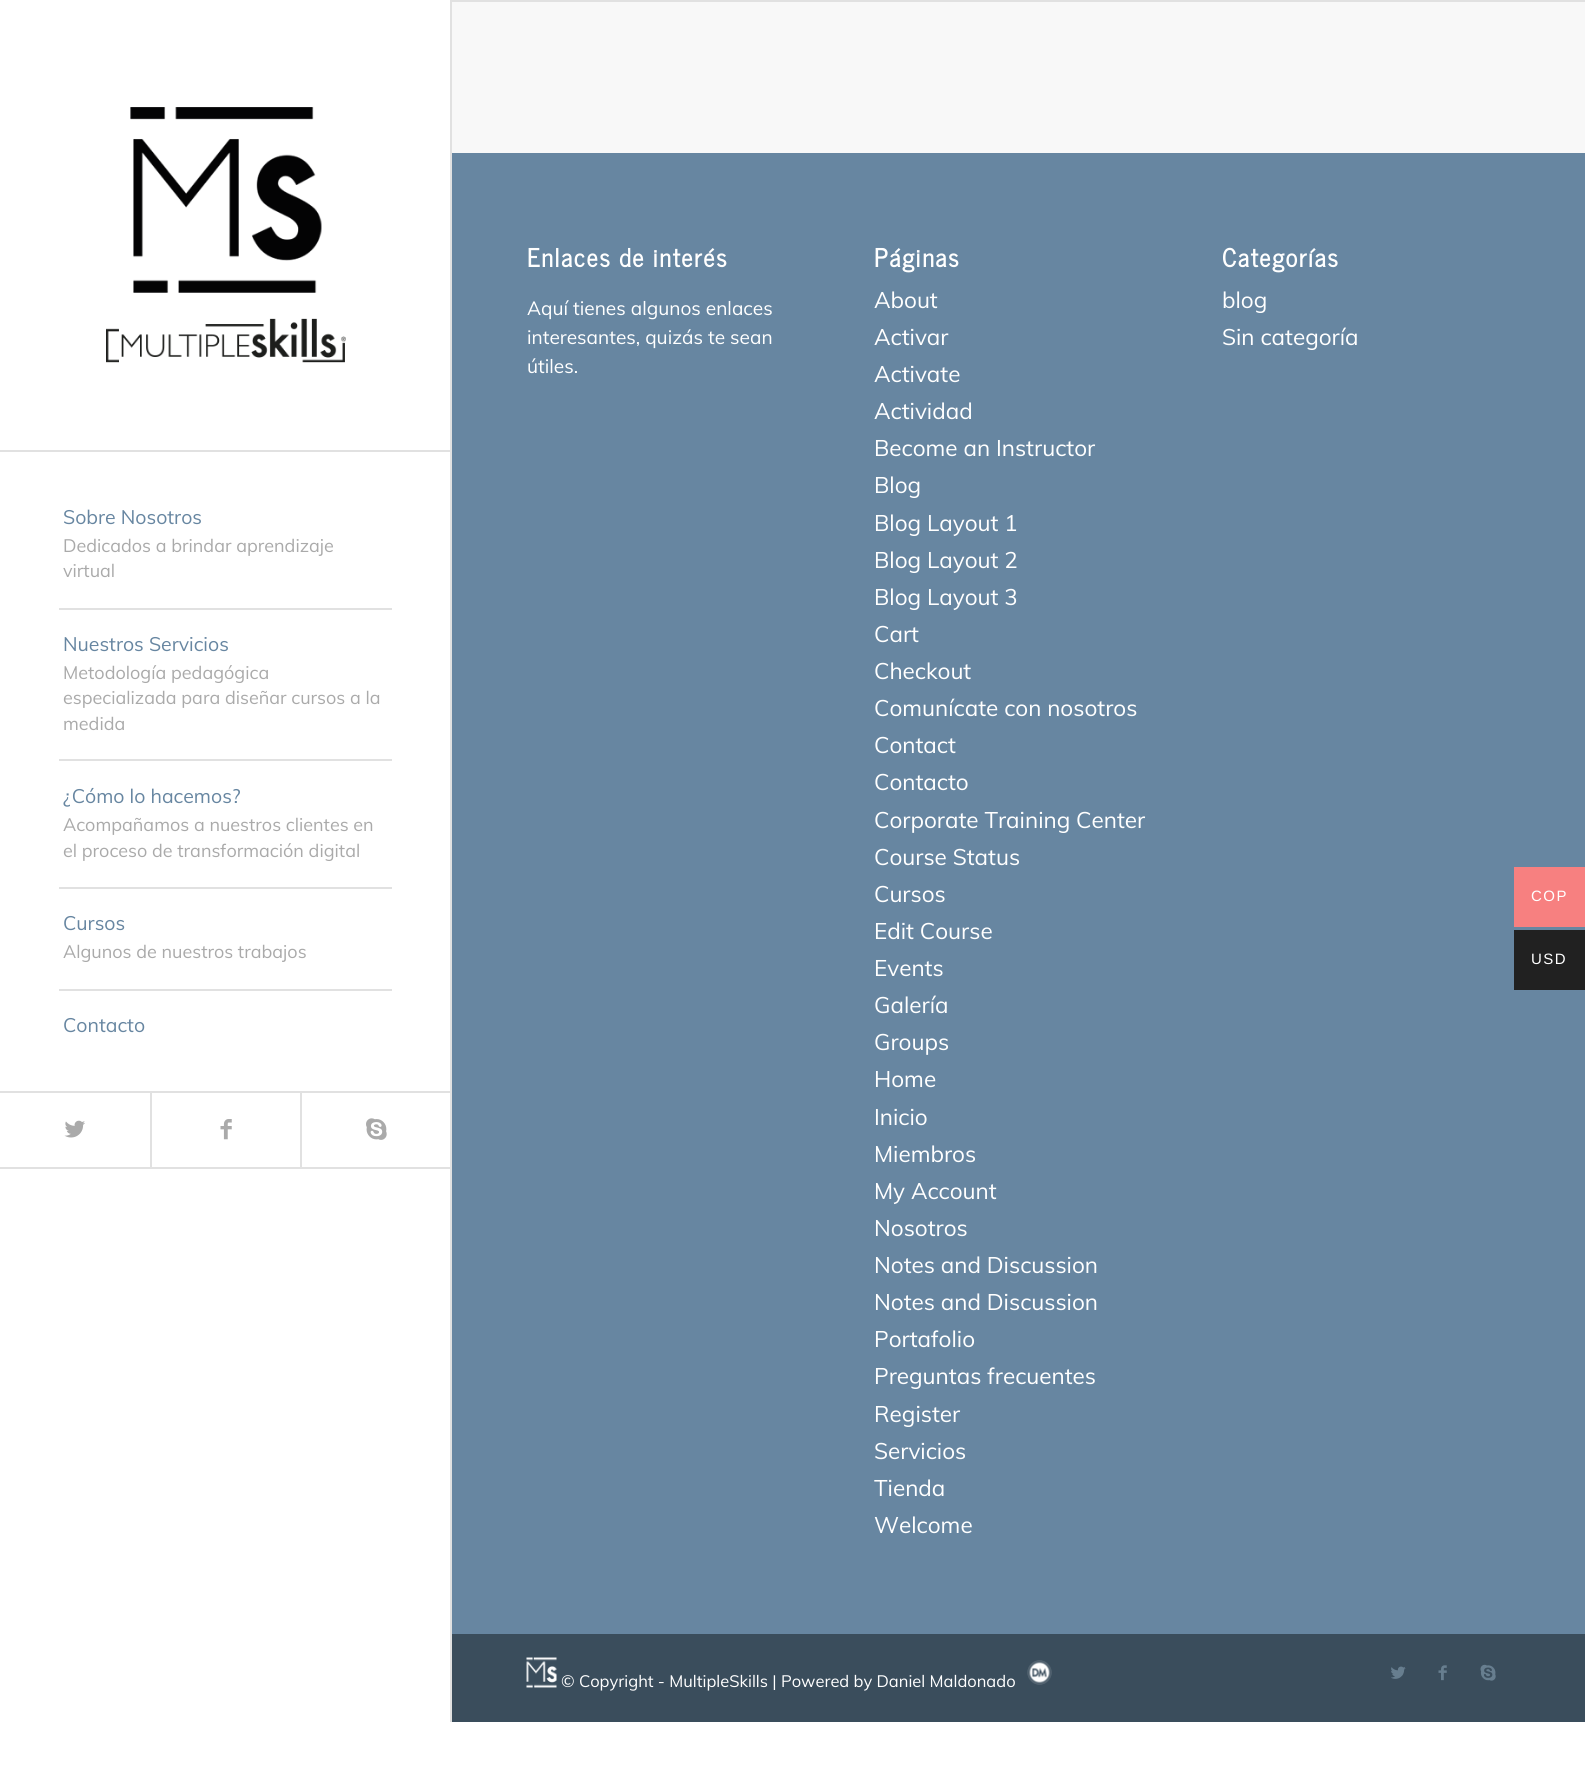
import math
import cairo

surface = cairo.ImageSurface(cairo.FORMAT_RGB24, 1585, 1777)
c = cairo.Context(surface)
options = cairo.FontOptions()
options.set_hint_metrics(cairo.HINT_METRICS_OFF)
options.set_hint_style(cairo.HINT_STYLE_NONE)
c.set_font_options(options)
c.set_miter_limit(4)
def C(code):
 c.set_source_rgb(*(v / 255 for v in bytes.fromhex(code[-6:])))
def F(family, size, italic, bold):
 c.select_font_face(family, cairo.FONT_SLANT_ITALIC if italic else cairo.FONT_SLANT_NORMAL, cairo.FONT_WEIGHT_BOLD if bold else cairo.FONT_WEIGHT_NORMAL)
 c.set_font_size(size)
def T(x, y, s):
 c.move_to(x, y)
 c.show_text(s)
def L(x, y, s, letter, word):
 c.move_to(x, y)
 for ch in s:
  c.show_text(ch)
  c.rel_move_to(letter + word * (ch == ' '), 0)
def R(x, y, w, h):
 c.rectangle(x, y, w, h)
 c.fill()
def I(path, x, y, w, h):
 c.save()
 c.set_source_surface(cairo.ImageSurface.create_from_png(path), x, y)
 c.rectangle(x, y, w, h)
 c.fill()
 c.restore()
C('ffffff')
c.paint()
C('e1e1e1')
R(0,1167,450,2)
R(0,450,450,2)
I('1.png',106,107,240,256)
R(59,608,333,2)
F('Muli',19.5,0,0)
C('6786a1')
T(63,524,'Sobre Nosotros')
F('Muli',18,0,0)
C('aaaaaa')
T(63,552,'Dedicados a brindar aprendizaje')
T(63,577,'virtual')
C('e1e1e1')
R(59,759,333,2)
F('Muli',19.5,0,0)
C('6786a1')
T(63,651,'Nuestros Servicios')
F('Muli',18,0,0)
C('aaaaaa')
T(63,679,'Metodología pedagógica')
T(63,704,'especializada para diseñar cursos a la')
T(63,730,'medida')
C('e1e1e1')
R(59,887,333,2)
F('Muli',19.5,0,0)
C('6786a1')
T(63,803,'¿Cómo lo hacemos?')
F('Muli',18,0,0)
C('aaaaaa')
T(63,831,'Acompañamos a nuestros clientes en')
T(63,857,'el proceso de transformación digital')
C('e1e1e1')
R(59,989,333,2)
F('Muli',19.5,0,0)
C('6786a1')
T(63,930,'Cursos')
F('Muli',18,0,0)
C('aaaaaa')
T(63,958,'Algunos de nuestros trabajos')
F('Muli',19.5,0,0)
C('6786a1')
T(63,1032,'Contacto')
C('e1e1e1')
R(0,1091,450,2)
I('2.png',64,1120,21,18)
R(150,1092,2,75)
I('3.png',220,1119,12,21)
R(300,1092,2,75)
I('4.png',366,1118,21,22)
R(450,0,2,1722)
C('f8f8f8')
R(452,2,1133,151)
C('e1e1e1')
R(452,0,1133,2)
C('6786a1')
R(452,153,1133,1481)
F('News Cycle',24.75,0,1)
C('ffffff')
L(527,267,'Enlaces de interés',1.5,0)
F('Muli',19.1,0,0)
T(527,315,'Aquí tienes algunos enlaces')
T(527,344,'interesantes, quizás te sean')
T(527,373,'útiles.')
F('News Cycle',24.75,0,1)
L(874,267,'Páginas',1.5,0)
F('Muli',22.5,0,0)
T(874,308,'About')
T(874,345,'Activar')
T(874,382,'Activate')
T(874,419,'Actividad')
T(874,456,'Become an Instructor')
T(874,493,'Blog')
T(874,531,'Blog Layout 1')
T(874,568,'Blog Layout 2')
T(874,605,'Blog Layout 3')
T(874,642,'Cart')
T(874,679,'Checkout')
T(874,716,'Comunícate con nosotros')
T(874,753,'Contact')
T(874,790,'Contacto')
T(874,828,'Corporate Training Center')
T(874,865,'Course Status')
T(874,902,'Cursos')
T(874,939,'Edit Course')
T(874,976,'Events')
T(874,1013,'Galería')
T(874,1050,'Groups')
T(874,1087,'Home')
T(874,1125,'Inicio')
T(874,1162,'Miembros')
T(874,1199,'My Account')
T(874,1236,'Nosotros')
T(874,1273,'Notes and Discussion')
T(874,1310,'Notes and Discussion')
T(874,1347,'Portafolio')
T(874,1384,'Preguntas frecuentes')
T(874,1422,'Register')
T(874,1459,'Servicios')
T(874,1496,'Tienda')
T(874,1533,'Welcome')
c.save()
c.rectangle(1223,222,288,135)
c.clip()
F('News Cycle',24.75,0,1)
L(1222,267,'Categorías',1.5,0)
c.restore()
T(1222,308,'blog')
T(1222,345,'Sin categoría')
C('3a4d5c')
R(452,1634,1133,88)
I('5.png',526,1657,31,31)
F('Muli',16.5,0,0)
C('ffffff')
T(561,1687,'© Copyright - MultipleSkills | Powered by Daniel Maldonado')
I('6.png',1027,1660,25,25)
I('7.png',1391,1666,15,13)
I('8.png',1438,1665,9,16)
I('9.png',1480,1664,16,17)
C('f78080')
R(1514,867,71,60)
F('Liberation Sans',15,0,0)
C('ffffff')
L(1531,901,'COP',1.5,0)
C('212121')
R(1514,930,71,60)
C('ffffff')
L(1531,964,'USD',1.5,0)
surface.write_to_png('o.png')
